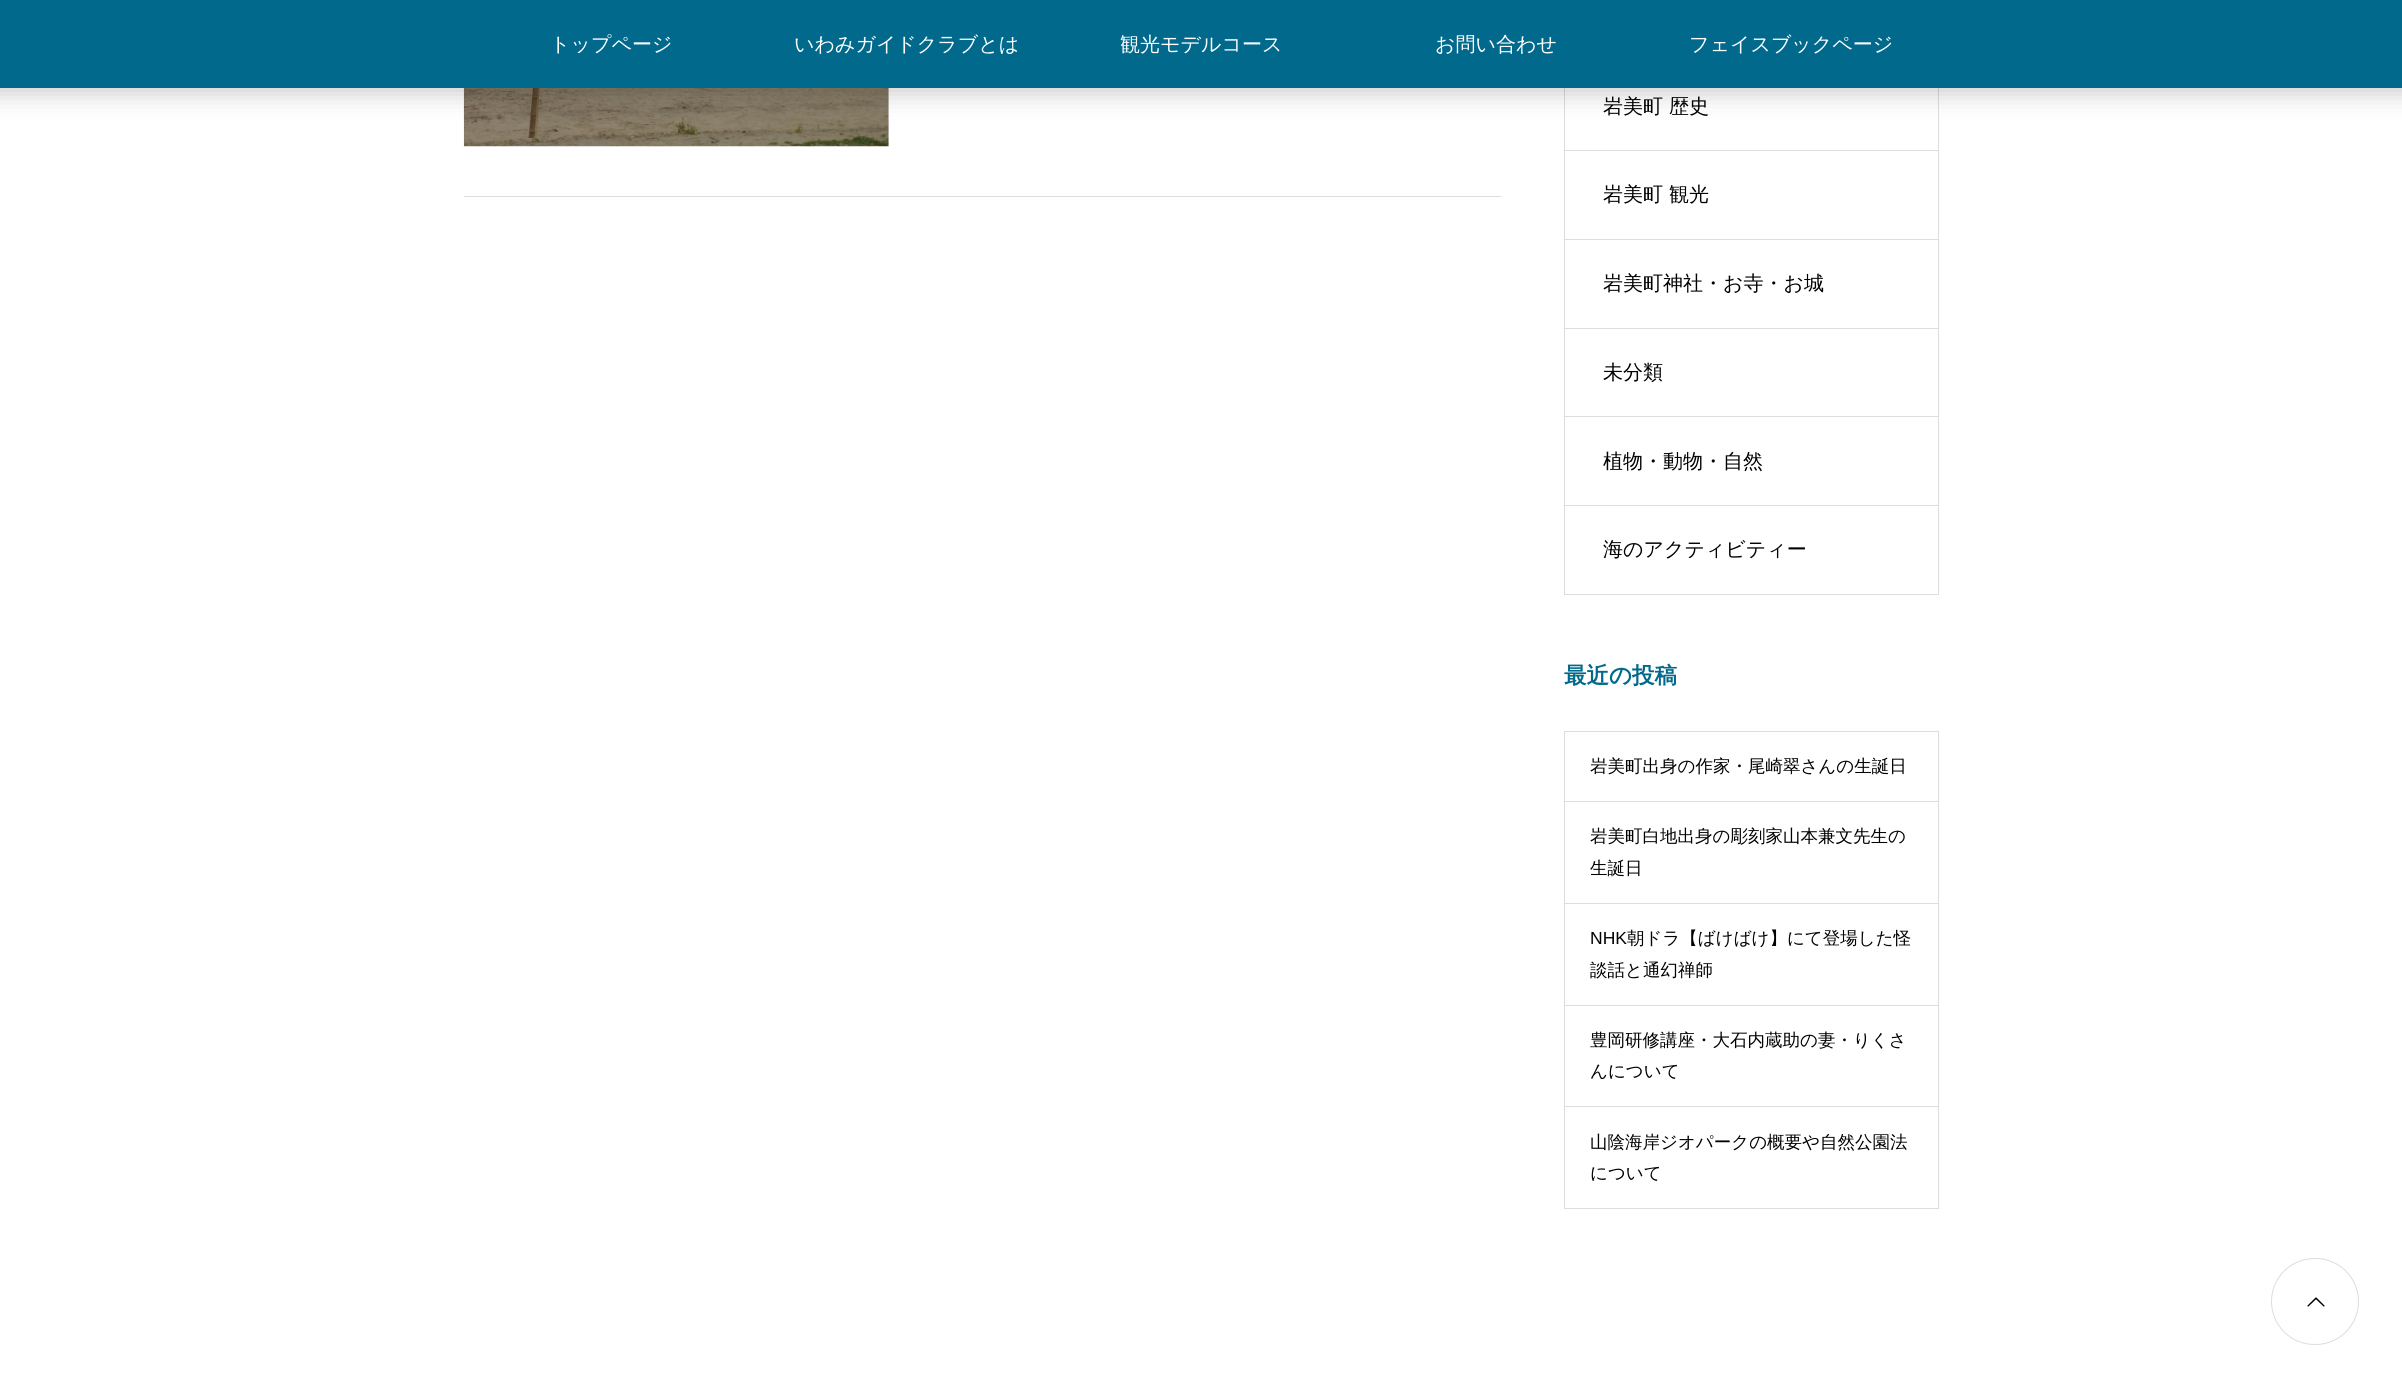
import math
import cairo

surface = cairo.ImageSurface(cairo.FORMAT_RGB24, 2402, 1388)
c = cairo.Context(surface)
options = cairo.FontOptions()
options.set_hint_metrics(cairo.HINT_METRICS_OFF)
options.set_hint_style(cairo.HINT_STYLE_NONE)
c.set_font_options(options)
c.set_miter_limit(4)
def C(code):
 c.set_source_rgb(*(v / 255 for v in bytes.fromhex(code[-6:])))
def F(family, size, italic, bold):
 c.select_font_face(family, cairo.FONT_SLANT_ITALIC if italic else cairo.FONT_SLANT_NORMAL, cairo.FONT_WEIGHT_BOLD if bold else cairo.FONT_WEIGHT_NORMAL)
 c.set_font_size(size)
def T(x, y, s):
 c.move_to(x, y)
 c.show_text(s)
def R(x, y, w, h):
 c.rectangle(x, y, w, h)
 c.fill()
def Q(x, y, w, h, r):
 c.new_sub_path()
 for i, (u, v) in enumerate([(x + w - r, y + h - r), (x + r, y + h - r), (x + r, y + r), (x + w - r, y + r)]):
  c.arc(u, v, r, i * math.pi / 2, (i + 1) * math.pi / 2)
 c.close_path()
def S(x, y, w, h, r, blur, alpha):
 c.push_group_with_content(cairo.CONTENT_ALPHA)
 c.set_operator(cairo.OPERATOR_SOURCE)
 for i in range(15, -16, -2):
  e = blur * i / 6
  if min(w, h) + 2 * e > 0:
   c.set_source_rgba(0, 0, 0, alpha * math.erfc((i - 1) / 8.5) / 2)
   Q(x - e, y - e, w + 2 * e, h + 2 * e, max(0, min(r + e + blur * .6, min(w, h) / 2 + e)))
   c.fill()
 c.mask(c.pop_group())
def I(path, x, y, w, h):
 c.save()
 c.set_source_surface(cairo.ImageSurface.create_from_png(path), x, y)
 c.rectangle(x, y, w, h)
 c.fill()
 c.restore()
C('ffffff')
c.paint()
I('1.png',463,88,426,59)
c.rectangle(1564.5,-.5,374,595)
C('dddddd')
c.set_line_width(1)
c.stroke()
C('000000')
S(-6,-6,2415,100,0,12.5,.2)
C('00698c')
R(0,0,2402,88)
F('WenQuanYi Zen Hei Medium',20,0,0)
C('ffffff')
T(550,51,'トップページ')
T(794,51,'いわみガイドクラブとは')
T(1120,51,'観光モデルコース')
T(1435,51,'お問い合わせ')
T(1689,51,'フェイスブックページ')
C('dddddd')
R(464,196,1037,1)
C('000000')
T(1603,113,'岩美町 歴史')
C('dddddd')
R(1565,150,373,1)
C('000000')
T(1603,201,'岩美町 観光')
C('dddddd')
R(1565,239,373,1)
C('000000')
T(1603,290,'岩美町神社・お寺・お城')
C('dddddd')
R(1565,328,373,1)
C('000000')
T(1603,379,'未分類')
C('dddddd')
R(1565,416,373,1)
C('000000')
T(1603,468,'植物・動物・自然')
C('dddddd')
R(1565,505,373,1)
C('000000')
T(1603,556,'海のアクティビティー')
F('WenQuanYi Zen Hei',22.5,0,1)
C('00698c')
T(1564,683,'最近の投稿')
C('dddddd')
R(1564,731,375,1)
R(1938,731,1,70)
R(1564,731,1,70)
F('WenQuanYi Zen Hei Medium',17.5,0,0)
C('000000')
T(1590,772,'岩美町出身の作家・尾崎翠さんの生誕日')
C('dddddd')
R(1564,801,375,1)
R(1938,801,1,102)
R(1564,801,1,102)
C('000000')
T(1590,842,'岩美町白地出身の彫刻家山本兼文先生の')
T(1590,874,'生誕日')
C('dddddd')
R(1564,903,375,1)
R(1938,903,1,102)
R(1564,903,1,102)
F('Liberation Sans',17.5,0,0)
C('000000')
T(1590,944,'NHK')
F('WenQuanYi Zen Hei Medium',17.5,0,0)
T(1627,944,'朝ドラ【ばけばけ】にて登場した怪')
T(1590,976,'談話と通幻禅師')
C('dddddd')
R(1564,1005,375,1)
R(1938,1005,1,101)
R(1564,1005,1,101)
C('000000')
T(1590,1046,'豊岡研修講座・大石内蔵助の妻・りくさ')
T(1590,1077,'んについて')
c.rectangle(1564.5,1106.5,374,102)
C('dddddd')
c.stroke()
C('000000')
T(1590,1148,'山陰海岸ジオパークの概要や自然公園法')
T(1590,1179,'について')
Q(2271.5,1258.5,87,86,43)
C('dddddd')
c.stroke()
I('2.png',2307,1297,18,10)
surface.write_to_png('o.png')
